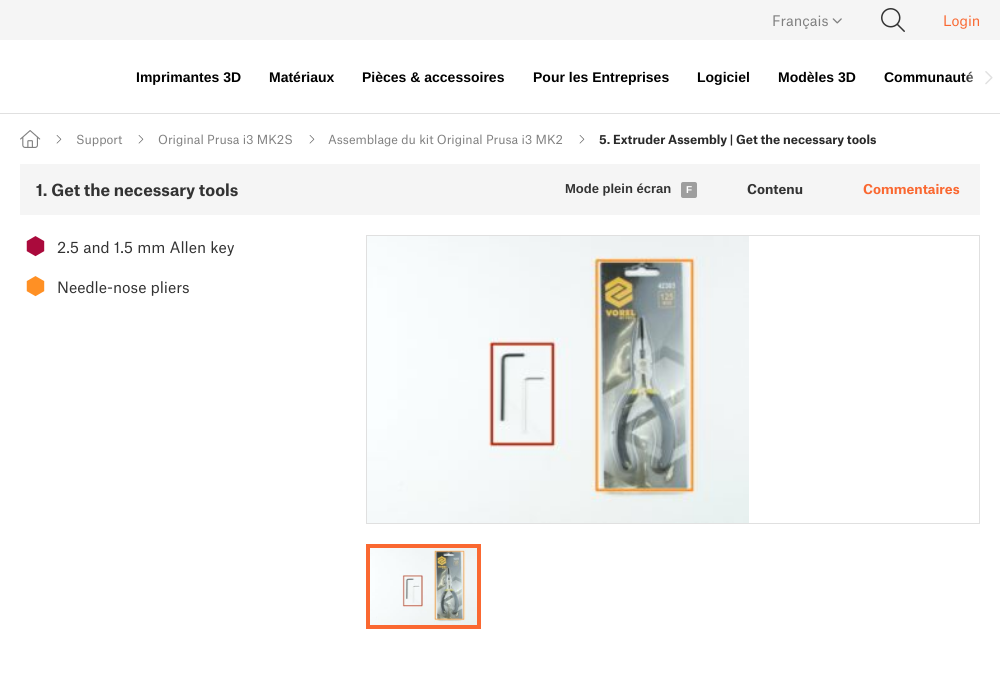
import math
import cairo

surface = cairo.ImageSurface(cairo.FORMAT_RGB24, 1000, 673)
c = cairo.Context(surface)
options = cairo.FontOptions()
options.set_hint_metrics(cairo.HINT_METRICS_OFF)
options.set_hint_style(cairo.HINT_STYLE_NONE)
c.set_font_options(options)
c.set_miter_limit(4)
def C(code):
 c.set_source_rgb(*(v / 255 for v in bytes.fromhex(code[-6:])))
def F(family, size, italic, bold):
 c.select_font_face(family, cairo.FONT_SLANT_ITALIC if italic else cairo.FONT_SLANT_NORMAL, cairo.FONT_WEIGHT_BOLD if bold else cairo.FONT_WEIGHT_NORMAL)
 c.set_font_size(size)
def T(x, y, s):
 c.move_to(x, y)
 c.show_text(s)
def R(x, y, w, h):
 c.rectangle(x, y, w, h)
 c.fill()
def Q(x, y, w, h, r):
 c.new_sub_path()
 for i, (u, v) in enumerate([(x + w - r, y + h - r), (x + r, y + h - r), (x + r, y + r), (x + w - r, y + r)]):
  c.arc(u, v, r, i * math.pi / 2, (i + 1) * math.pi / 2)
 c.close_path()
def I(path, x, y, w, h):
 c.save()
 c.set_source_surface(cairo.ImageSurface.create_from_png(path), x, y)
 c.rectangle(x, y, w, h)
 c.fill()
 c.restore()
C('ffffff')
c.paint()
C('f5f5f5')
R(0,0,1000,40)
F('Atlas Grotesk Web',14,0,0)
C('808080')
T(772,26,'Français')
I('1.png',832,18,10,6)
I('2.png',881,8,24,24)
C('fa6831')
T(943,26,'Login')
C('e0e0e0')
R(0,113,1000,1)
F('Liberation Sans',14,0,1)
C('000000')
T(136,82,'Imprimantes 3D')
T(269,82,'Matériaux')
T(362,82,'Pièces & accessoires')
T(533,82,'Pour les Entreprises')
T(697,82,'Logiciel')
T(778,82,'Modèles 3D')
T(884,82,'Communauté')
gradient = cairo.LinearGradient(986,77,963,77)
gradient.add_color_stop_rgba(0,1,1,1,1)
gradient.add_color_stop_rgba(1,1,1,1,0)
c.set_source(gradient)
R(963,71,10,12)
I('3.png',985,71,8,14)
I('4.png',20,130,21,18)
I('5.png',56,135,6,9)
F('Atlas Grotesk Web',12,0,0)
C('808080')
T(76,144,'Support')
I('5.png',138,135,6,9)
T(158,144,'Original Prusa i3 MK2S')
I('5.png',309,135,6,9)
T(328,144,'Assemblage du kit Original Prusa i3 MK2')
I('5.png',579,135,6,9)
F('Atlas Grotesk Web',12,0,1)
C('2a2a2a')
T(599,144,'5. Extruder Assembly | Get the necessary tools')
C('f5f5f5')
R(20,164,960,51)
F('Atlas Grotesk Web',16,0,1)
C('333333')
T(36,196,'1. Get the necessary tools')
F('Liberation Sans',13,0,1)
T(565,193,'Mode plein écran')
C('9e9e9e')
Q(681,182,16,16,2)
c.fill()
F('Liberation Sans',10,0,1)
C('ffffff')
T(686,193,'F')
F('Atlas Grotesk Web',13,0,1)
C('333333')
T(747,194,'Contenu')
C('fa6831')
T(863,194,'Commentaires')
F('DejaVu Sans',24,0,0)
C('aa0a3c')
T(25,254,'⬢')
F('Atlas Grotesk Web',15,0,0)
C('333333')
T(57,253,'2.5 and 1.5 mm Allen key')
F('DejaVu Sans',24,0,0)
C('ff9024')
T(25,294,'⬢')
F('Atlas Grotesk Web',15,0,0)
C('333333')
T(57,293,'Needle-nose pliers')
c.rectangle(366.5,235.5,613,288)
C('e0e0e0')
c.set_line_width(1)
c.stroke()
I('6.png',367,236,382,287)
I('7.png',370,548,107,77)
c.rectangle(368,546,111,81)
C('fa6831')
c.set_line_width(4)
c.stroke()
surface.write_to_png('o.png')
